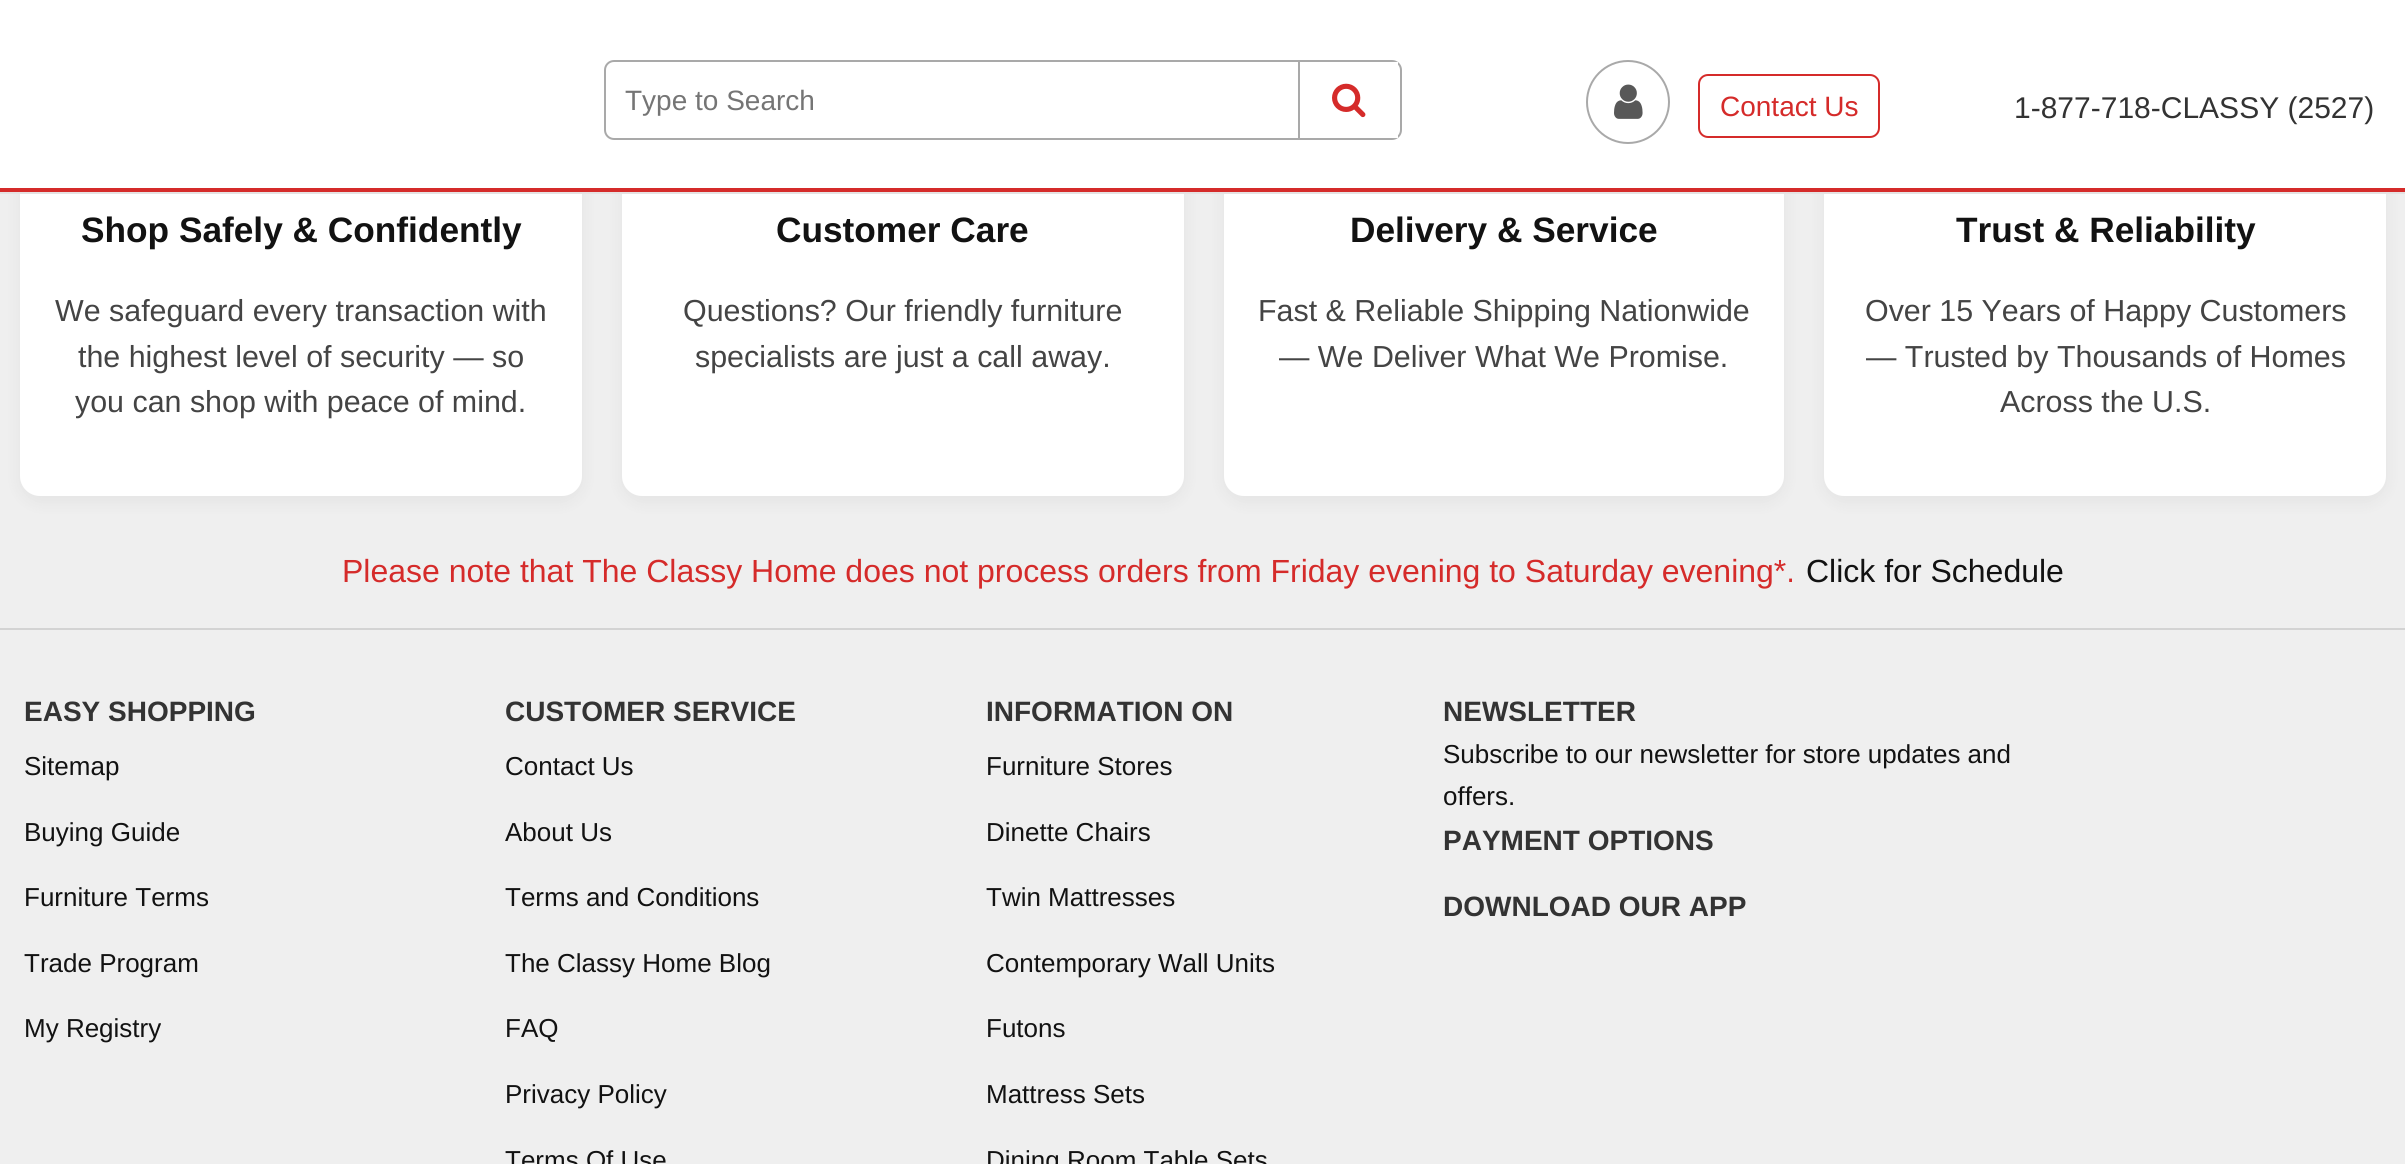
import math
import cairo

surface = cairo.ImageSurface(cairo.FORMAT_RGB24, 2405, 1164)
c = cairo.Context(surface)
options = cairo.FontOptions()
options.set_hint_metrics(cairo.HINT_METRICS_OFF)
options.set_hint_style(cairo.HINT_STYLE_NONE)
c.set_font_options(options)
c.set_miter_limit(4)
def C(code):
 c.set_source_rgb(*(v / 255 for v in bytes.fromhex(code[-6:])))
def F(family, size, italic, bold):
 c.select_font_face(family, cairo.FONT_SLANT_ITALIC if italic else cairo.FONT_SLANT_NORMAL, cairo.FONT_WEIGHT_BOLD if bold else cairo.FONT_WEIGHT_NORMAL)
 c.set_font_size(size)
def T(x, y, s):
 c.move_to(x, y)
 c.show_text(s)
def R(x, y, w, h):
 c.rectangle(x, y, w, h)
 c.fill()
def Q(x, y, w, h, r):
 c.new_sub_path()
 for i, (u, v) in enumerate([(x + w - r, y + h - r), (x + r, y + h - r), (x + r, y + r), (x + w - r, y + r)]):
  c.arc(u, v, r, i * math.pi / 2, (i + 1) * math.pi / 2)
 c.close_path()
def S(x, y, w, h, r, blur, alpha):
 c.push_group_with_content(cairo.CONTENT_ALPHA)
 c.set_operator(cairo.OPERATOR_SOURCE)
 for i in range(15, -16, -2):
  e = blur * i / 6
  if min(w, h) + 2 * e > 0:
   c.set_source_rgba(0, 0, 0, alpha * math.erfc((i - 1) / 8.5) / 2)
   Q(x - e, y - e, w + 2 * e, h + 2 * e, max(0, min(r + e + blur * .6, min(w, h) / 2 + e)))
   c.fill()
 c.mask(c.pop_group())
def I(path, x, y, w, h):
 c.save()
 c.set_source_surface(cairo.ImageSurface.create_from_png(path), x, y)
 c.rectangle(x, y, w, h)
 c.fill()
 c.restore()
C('efefef')
c.paint()
C('000000')
S(20,42,562,460,20,8,.05)
C('ffffff')
Q(20,36,562,460,20)
c.fill()
C('000000')
S(622,42,562,460,20,8,.05)
C('ffffff')
Q(622,36,562,460,20)
c.fill()
C('000000')
S(1224,42,560,460,20,8,.05)
C('ffffff')
Q(1224,36,560,460,20)
c.fill()
C('000000')
S(1824,42,562,460,20,8,.05)
C('ffffff')
Q(1824,36,562,460,20)
c.fill()
R(0,0,2405,188)
C('d52b2a')
R(0,188,2405,4)
Q(605,61,796,78,9)
C('a9a9a9')
c.stroke()
F('Liberation Sans',28,0,0)
C('757575')
T(625,110,'Type to Search')
C('ffffff')
R(1392,62,6,76)
C('a9a9a9')
R(1298,62,2,76)
I('1.png',1332,83,34,35)
c.arc(1628,102,41,0,2 * math.pi)
c.stroke()
I('2.png',1614,84,29,35)
Q(1699,75,180,62,9)
C('d52b2a')
c.stroke()
T(1720,116,'Contact Us')
F('Liberation Sans',30,0,0)
C('333333')
T(2014,118,'1-877-718-CLASSY (2527)')
C('e5e2e2')
R(0,192,2405,2)
F('Liberation Sans',35.25,0,1)
C('121212')
T(81,242,'Shop Safely & Confidently')
F('Liberation Sans',30.4,0,0)
C('444444')
T(55,321,'We safeguard every transaction with')
T(78,367,'the highest level of security — so')
T(75,412,'you can shop with peace of mind.')
F('Liberation Sans',35.25,0,1)
C('121212')
T(776,242,'Customer Care')
F('Liberation Sans',30.4,0,0)
C('444444')
T(683,321,'Questions? Our friendly furniture')
T(695,367,'specialists are just a call away.')
F('Liberation Sans',35.25,0,1)
C('121212')
T(1350,242,'Delivery & Service')
F('Liberation Sans',30.4,0,0)
C('444444')
T(1258,321,'Fast & Reliable Shipping Nationwide')
T(1279,367,'— We Deliver What We Promise.')
F('Liberation Sans',35.25,0,1)
C('121212')
T(1956,242,'Trust & Reliability')
F('Liberation Sans',30.4,0,0)
C('444444')
T(1865,321,'Over 15 Years of Happy Customers')
T(1866,367,'— Trusted by Thousands of Homes')
T(2000,412,'Across the U.S.')
C('d3d3d3')
R(0,628,2405,2)
F('Liberation Sans',32,0,0)
C('d52b2a')
T(342,582,'Please note that The Classy Home does not process orders from Friday evening to Saturday evening*.')
C('121212')
T(1806,582,'Click for Schedule')
F('Liberation Sans',28,0,1)
C('333333')
T(24,721,'EASY SHOPPING')
F('Liberation Sans',26,0,0)
C('121212')
T(24,775,'Sitemap')
T(24,841,'Buying Guide')
T(24,906,'Furniture Terms')
T(24,972,'Trade Program')
T(24,1037,'My Registry')
F('Liberation Sans',28,0,1)
C('333333')
T(505,721,'CUSTOMER SERVICE')
F('Liberation Sans',26,0,0)
C('121212')
T(505,775,'Contact Us')
T(505,841,'About Us')
T(505,906,'Terms and Conditions')
T(505,972,'The Classy Home Blog')
T(505,1037,'FAQ')
T(505,1103,'Privacy Policy')
T(505,1169,'Terms Of Use')
F('Liberation Sans',28,0,1)
C('333333')
T(986,721,'INFORMATION ON')
F('Liberation Sans',26,0,0)
C('121212')
T(986,775,'Furniture Stores')
T(986,841,'Dinette Chairs')
T(986,906,'Twin Mattresses')
T(986,972,'Contemporary Wall Units')
T(986,1037,'Futons')
T(986,1103,'Mattress Sets')
T(986,1169,'Dining Room Table Sets')
F('Liberation Sans',28,0,1)
C('333333')
T(1443,721,'NEWSLETTER')
F('Liberation Sans',26,0,0)
C('121212')
T(1443,763,'Subscribe to our newsletter for store updates and')
T(1443,805,'offers.')
F('Liberation Sans',28,0,1)
C('333333')
T(1443,850,'PAYMENT OPTIONS')
T(1443,916,'DOWNLOAD OUR APP')
surface.write_to_png('o.png')
